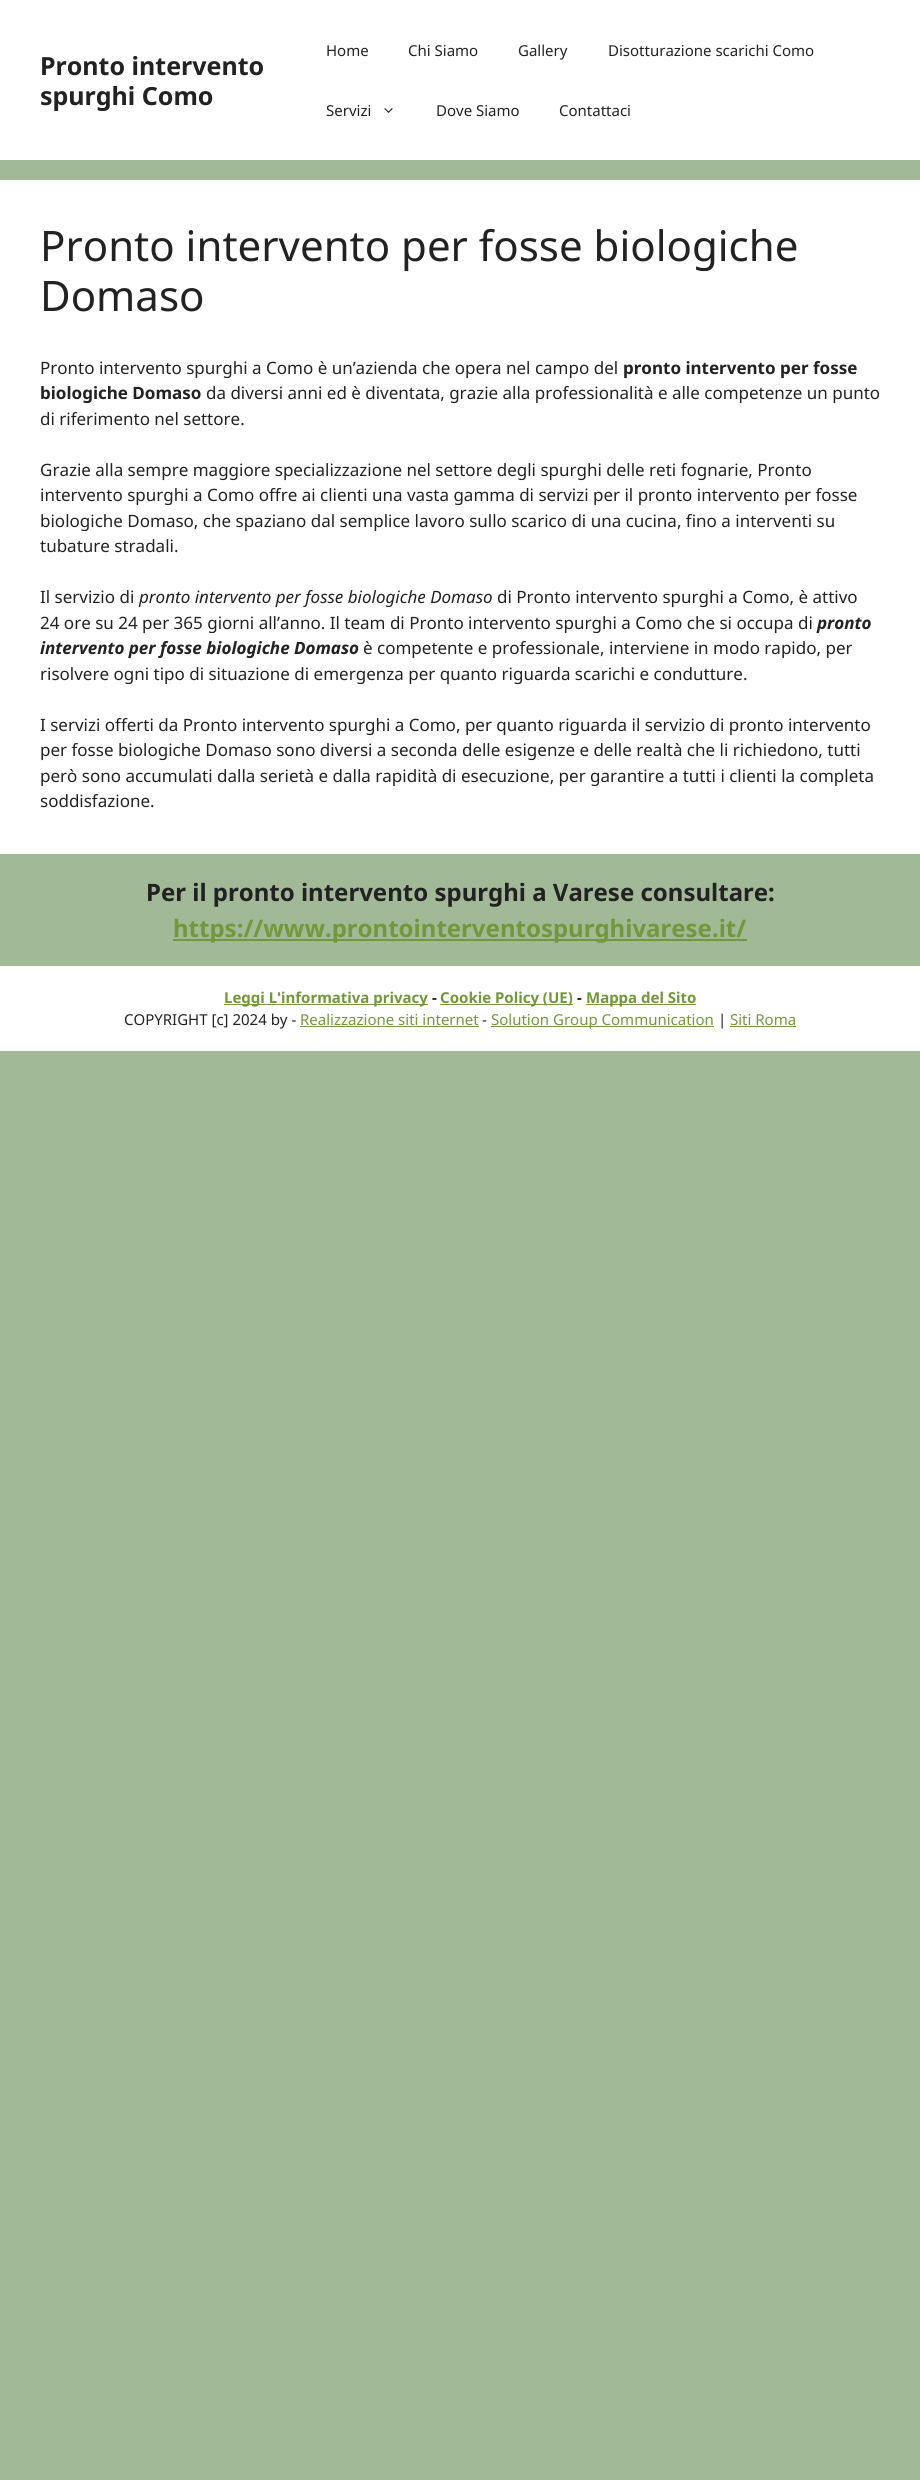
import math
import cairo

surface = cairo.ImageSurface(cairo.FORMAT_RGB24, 920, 2480)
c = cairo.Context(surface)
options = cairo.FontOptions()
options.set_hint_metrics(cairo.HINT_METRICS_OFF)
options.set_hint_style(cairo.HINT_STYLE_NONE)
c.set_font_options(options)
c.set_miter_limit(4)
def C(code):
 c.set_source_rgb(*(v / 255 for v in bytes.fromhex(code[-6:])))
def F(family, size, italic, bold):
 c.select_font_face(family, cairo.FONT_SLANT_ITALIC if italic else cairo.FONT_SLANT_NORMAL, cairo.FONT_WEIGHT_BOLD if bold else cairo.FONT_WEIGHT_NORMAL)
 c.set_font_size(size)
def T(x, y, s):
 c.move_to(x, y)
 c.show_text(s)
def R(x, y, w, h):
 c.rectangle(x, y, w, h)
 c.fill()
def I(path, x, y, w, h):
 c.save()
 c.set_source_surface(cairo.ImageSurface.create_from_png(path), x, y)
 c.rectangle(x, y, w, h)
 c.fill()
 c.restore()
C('a2b998')
c.paint()
C('ffffff')
R(0,0,920,160)
F('Noto Sans',25,0,1)
C('222222')
T(40,75,'Pronto intervento')
T(40,105,'spurghi Como')
F('Noto Sans',15,0,0)
T(326,56,'Home')
T(408,56,'Chi Siamo')
T(518,56,'Gallery')
T(608,56,'Disotturazione scarichi Como')
T(326,116,'Servizi')
I('1.png',384,108,9,5)
T(436,116,'Dove Siamo')
T(559,116,'Contattaci')
C('ffffff')
R(0,180,920,674)
F('Noto Sans',42,0,0)
C('222222')
T(40,261,'Pronto intervento per fosse biologiche')
T(40,311,'Domaso')
F('Noto Sans',17,0,0)
T(40,374,'Pronto intervento spurghi a Como è un’azienda che opera nel campo del')
F('Noto Sans',17,0,1)
T(623,374,'pronto intervento per fosse')
T(40,399,'biologiche Domaso')
F('Noto Sans',17,0,0)
T(206,399,'da diversi anni ed è diventata, grazie alla professionalità e alle competenze un punto')
T(40,425,'di riferimento nel settore.')
T(40,476,'Grazie alla sempre maggiore specializzazione nel settore degli spurghi delle reti fognarie, Pronto')
T(40,501,'intervento spurghi a Como offre ai clienti una vasta gamma di servizi per il pronto intervento per fosse')
T(40,527,'biologiche Domaso, che spaziano dal semplice lavoro sullo scarico di una cucina, fino a interventi su')
T(40,552,'tubature stradali.')
T(40,603,'Il servizio di')
F('Noto Sans',17,1,0)
T(139,603,'pronto intervento per fosse biologiche Domaso')
F('Noto Sans',17,0,0)
T(497,603,'di Pronto intervento spurghi a Como, è attivo')
T(40,629,'24 ore su 24 per 365 giorni all’anno. Il team di Pronto intervento spurghi a Como che si occupa di')
F('Noto Sans',17,1,1)
T(817,629,'pronto')
T(40,654,'intervento per fosse biologiche Domaso')
F('Noto Sans',17,0,0)
T(363,654,'è competente e professionale, interviene in modo rapido, per')
T(40,680,'risolvere ogni tipo di situazione di emergenza per quanto riguarda scarichi e condutture.')
T(40,731,'I servizi offerti da Pronto intervento spurghi a Como, per quanto riguarda il servizio di pronto intervento')
T(40,756,'per fosse biologiche Domaso sono diversi a seconda delle esigenze e delle realtà che li richiedono, tutti')
T(40,782,'però sono accumulati dalla serietà e dalla rapidità di esecuzione, per garantire a tutti i clienti la completa')
T(40,807,'soddisfazione.')
F('Noto Sans',24,0,1)
T(146,901,'Per il pronto intervento spurghi a Varese consultare:')
C('71993a')
R(173,939,574,2)
T(173,937,'https://www.prontointerventospurghivarese.it/')
C('ffffff')
R(0,966,920,85)
C('71993a')
R(224,1004,204,1)
F('Noto Sans',15,0,1)
T(224,1003,'Leggi L\'informativa privacy')
C('222222')
T(432,1003,'-')
C('71993a')
R(440,1004,133,1)
T(440,1003,'Cookie Policy (UE)')
C('222222')
T(577,1003,'-')
C('71993a')
R(586,1004,110,1)
T(586,1003,'Mappa del Sito')
F('Noto Sans',15,0,0)
C('222222')
T(124,1025,'COPYRIGHT [c] 2024 by -')
C('71993a')
T(300,1025,'Realizzazione siti internet')
R(300,1026,179,1)
C('222222')
T(482,1025,'-')
C('71993a')
R(491,1026,223,1)
T(491,1025,'Solution Group Communication')
C('222222')
T(718,1025,'|')
C('71993a')
T(730,1025,'Siti Roma')
R(730,1026,66,1)
surface.write_to_png('o.png')
